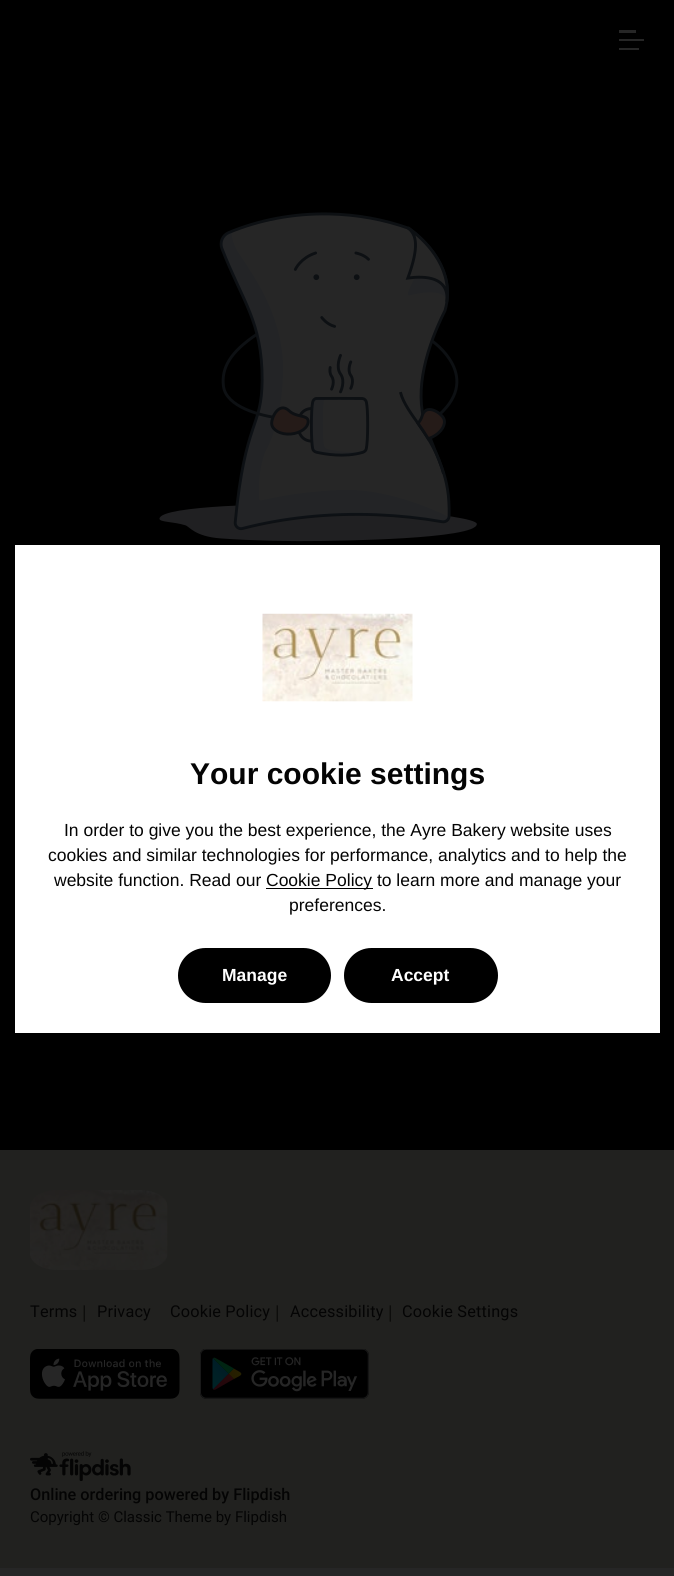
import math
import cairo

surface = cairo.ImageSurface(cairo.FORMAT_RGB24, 674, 1576)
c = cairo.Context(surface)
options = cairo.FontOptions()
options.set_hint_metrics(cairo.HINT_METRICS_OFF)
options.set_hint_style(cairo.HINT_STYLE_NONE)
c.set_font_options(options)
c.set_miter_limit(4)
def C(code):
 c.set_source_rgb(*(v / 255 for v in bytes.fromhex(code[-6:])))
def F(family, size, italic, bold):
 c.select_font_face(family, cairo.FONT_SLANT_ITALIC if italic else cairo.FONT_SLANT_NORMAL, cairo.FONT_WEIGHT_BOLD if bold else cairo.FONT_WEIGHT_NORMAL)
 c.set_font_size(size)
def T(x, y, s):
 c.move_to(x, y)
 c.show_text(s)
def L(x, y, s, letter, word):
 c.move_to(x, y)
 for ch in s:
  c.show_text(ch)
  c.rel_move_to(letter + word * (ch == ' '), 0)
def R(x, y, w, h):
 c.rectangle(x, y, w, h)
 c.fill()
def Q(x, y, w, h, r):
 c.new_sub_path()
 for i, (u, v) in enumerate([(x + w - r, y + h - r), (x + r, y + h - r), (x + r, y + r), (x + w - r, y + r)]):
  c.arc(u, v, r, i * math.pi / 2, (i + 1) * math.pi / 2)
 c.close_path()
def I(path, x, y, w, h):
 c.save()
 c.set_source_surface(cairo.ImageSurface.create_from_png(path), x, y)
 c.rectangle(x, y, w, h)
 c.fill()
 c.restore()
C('262626')
c.paint()
C('000000')
R(0,0,674,1150)
C('ffffff')
R(15,545,645,488)
I('1.png',262,613,151,89)
F('Liberation Sans',30,0,1)
C('040404')
T(190,784,'Your cookie settings')
F('Liberation Sans',17.5,0,0)
T(64,836,'In order to give you the best experience, the Ayre Bakery website uses')
T(48,861,'cookies and similar technologies for performance, analytics and to help the')
T(54,886,'website function. Read our')
C('000000')
R(266,888,107,1)
C('040404')
T(266,886,'Cookie Policy to learn more and manage your')
T(289,911,'preferences.')
C('000000')
Q(178,948,153,55,27.5)
c.fill()
F('Liberation Sans',17.5,0,1)
C('ffffff')
T(222,981,'Manage')
C('000000')
Q(344,948,154,55,27.5)
c.fill()
C('ffffff')
T(391,981,'Accept')
C('262626')
R(619,30,17,3)
R(619,39,25,2)
R(619,48,20,2)
I('2.png',159,212,318,330)
C('21211f')
R(0,1150,674,418)
I('3.png',30,1190,138,80)
F('Roboto',16.25,0,0)
C('040404')
L(30,1317,'Terms',.2,0)
F('Liberation Sans',17.5,0,0)
C('0d0d0c')
T(82,1318,'|')
F('Roboto',16.25,0,0)
C('040404')
L(97,1317,'Privacy',.2,0)
L(170,1317,'Cookie Policy',.2,0)
F('Liberation Sans',17.5,0,0)
C('0d0d0c')
T(275,1318,'|')
F('Roboto',16.25,0,0)
C('040404')
L(290,1317,'Accessibility',.2,0)
F('Liberation Sans',17.5,0,0)
C('0d0d0c')
T(388,1318,'|')
F('Roboto',16.25,0,0)
C('040404')
L(402,1317,'Cookie Settings',.2,0)
I('4.png',30,1349,150,50)
I('5.png',200,1349,169,50)
I('6.png',30,1451,101,30)
F('Roboto Medium',16.25,0,0)
T(30,1500,'Online ordering powered by Flipdish')
F('Roboto',15,0,0)
T(30,1522,'Copyright © Classic Theme by Flipdish')
surface.write_to_png('o.png')
